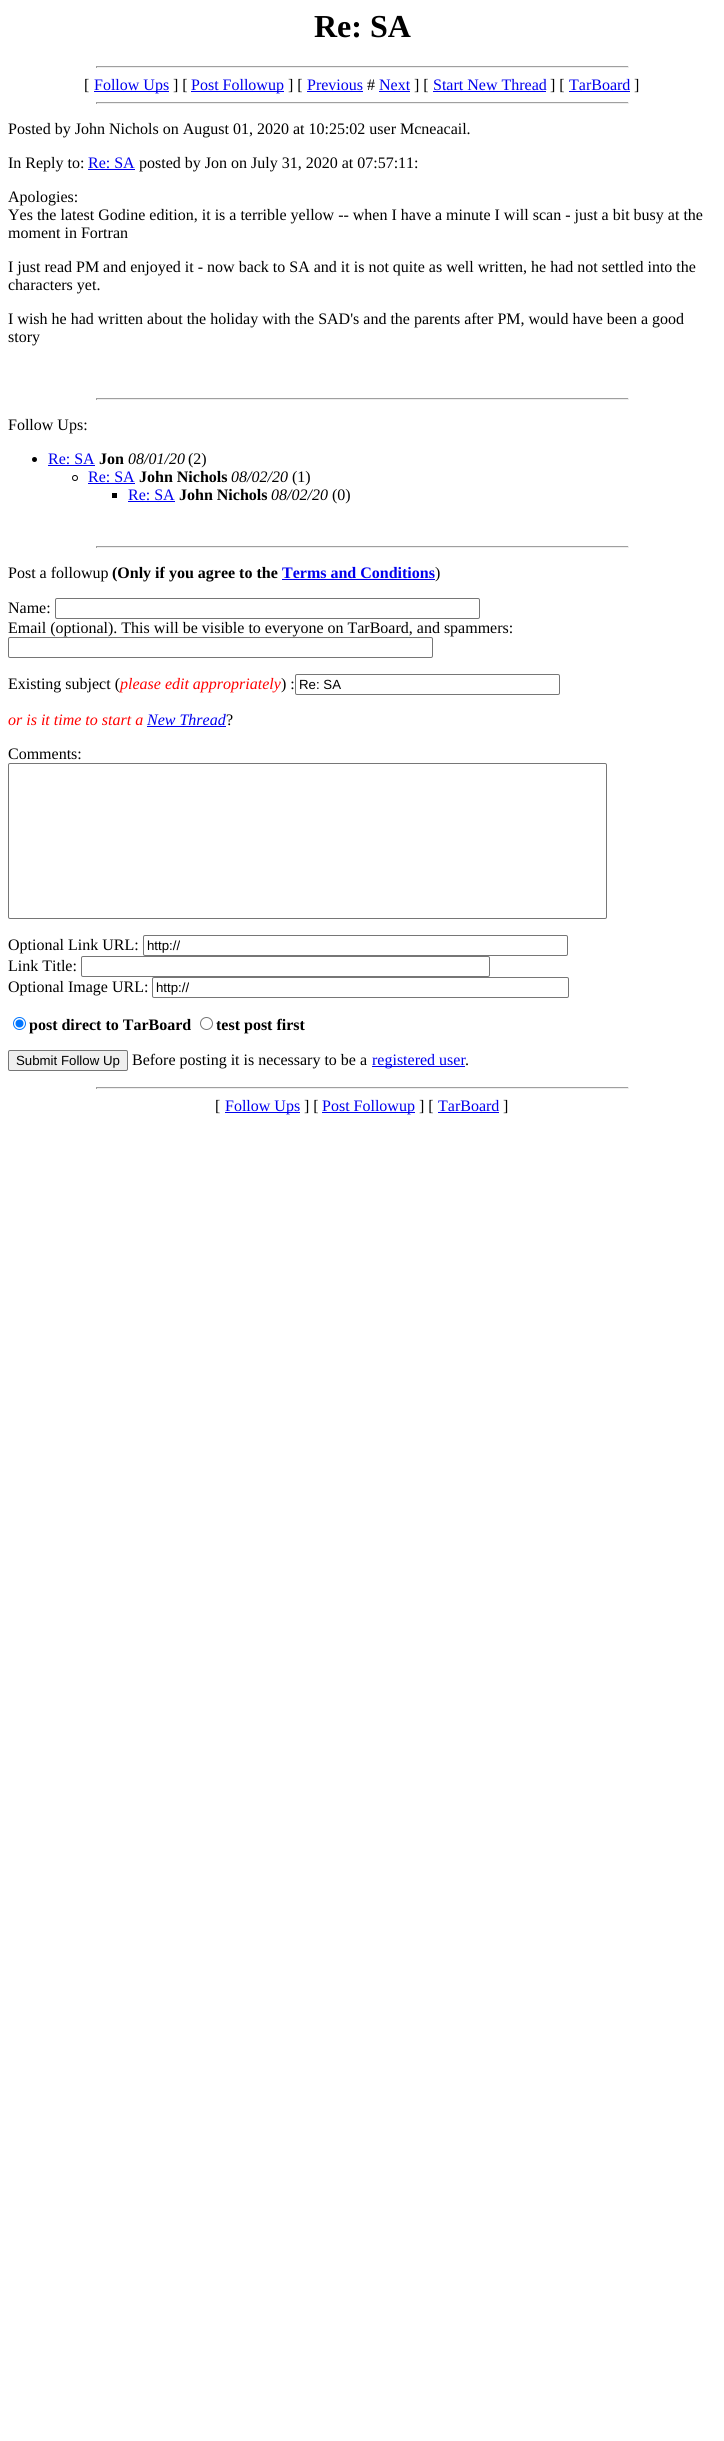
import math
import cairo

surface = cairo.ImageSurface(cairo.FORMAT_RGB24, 724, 2441)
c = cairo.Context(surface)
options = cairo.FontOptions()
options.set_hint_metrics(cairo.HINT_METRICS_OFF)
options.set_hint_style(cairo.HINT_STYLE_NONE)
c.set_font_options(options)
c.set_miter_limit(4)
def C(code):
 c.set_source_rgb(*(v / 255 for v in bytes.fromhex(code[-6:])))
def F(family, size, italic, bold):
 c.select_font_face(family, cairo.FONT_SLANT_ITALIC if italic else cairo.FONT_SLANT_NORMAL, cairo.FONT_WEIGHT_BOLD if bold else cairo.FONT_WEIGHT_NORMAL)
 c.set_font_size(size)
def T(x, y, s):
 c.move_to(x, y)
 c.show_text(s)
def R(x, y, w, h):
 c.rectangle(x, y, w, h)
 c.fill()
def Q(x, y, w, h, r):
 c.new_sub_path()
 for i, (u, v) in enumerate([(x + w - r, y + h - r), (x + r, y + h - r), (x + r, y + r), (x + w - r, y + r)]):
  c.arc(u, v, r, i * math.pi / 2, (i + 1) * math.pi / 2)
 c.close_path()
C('ffffff')
c.paint()
F('Liberation Serif',32,0,1)
C('000000')
T(314,37,'Re: SA')
C('9f9f9f')
R(96,66,533,1)
C('eeeeee')
R(628,66,1,2)
R(96,67,533,1)
C('9f9f9f')
R(96,66,1,2)
F('Liberation Serif',16,0,0)
C('000000')
T(84,90,'[')
C('0000ee')
R(94,91,75,1)
T(94,90,'Follow Ups')
C('000000')
T(173,90,'] [')
C('0000ee')
R(191,91,93,1)
T(191,90,'Post Followup')
C('000000')
T(288,90,'] [')
C('0000ee')
T(307,90,'Previous')
R(307,91,56,1)
C('000000')
T(367,90,'#')
C('0000ee')
T(379,90,'Next')
R(379,91,31,1)
C('000000')
T(414,90,'] [')
C('0000ee')
T(433,90,'Start New Thread')
R(433,91,113,1)
C('000000')
T(550,90,'] [')
C('0000ee')
T(569,90,'TarBoard')
R(569,91,61,1)
C('000000')
T(634,90,']')
C('9f9f9f')
R(96,102,533,1)
C('eeeeee')
R(628,102,1,2)
R(96,103,533,1)
C('9f9f9f')
R(96,102,1,2)
C('000000')
T(8,134,'Posted by John Nichols on August 01, 2020 at 10:25:02 user Mcneacail.')
T(8,168,'In Reply to:')
C('0000ee')
T(88,168,'Re: SA')
R(88,169,47,1)
C('000000')
T(139,168,'posted by Jon on July 31, 2020 at 07:57:11:')
T(8,202,'Apologies:')
T(8,220,'Yes the latest Godine edition, it is a terrible yellow -- when I have a minute I will scan - just a bit busy at the')
T(8,238,'moment in Fortran')
T(8,272,'I just read PM and enjoyed it - now back to SA and it is not quite as well written, he had not settled into the')
T(8,290,'characters yet.')
T(8,324,'I wish he had written about the holiday with the SAD\'s and the parents after PM, would have been a good')
T(8,342,'story')
C('9f9f9f')
R(96,398,533,1)
C('eeeeee')
R(628,398,1,2)
R(96,399,533,1)
C('9f9f9f')
R(96,398,1,2)
C('000000')
T(8,430,'Follow Ups:')
c.new_path()
c.arc(34.5,459.5,2.5,0,2 * math.pi)
c.fill()
C('0000ee')
T(48,464,'Re: SA')
R(48,465,47,1)
F('Liberation Serif',16,0,1)
C('000000')
T(99,464,'Jon')
F('Liberation Serif',16,1,0)
T(128,464,'08/01/20')
F('Liberation Serif',16,0,0)
T(188,464,'(2)')
c.new_path()
c.arc(75,478,2.5,0,2 * math.pi)
c.set_line_width(1)
c.stroke()
C('0000ee')
T(88,482,'Re: SA')
R(88,483,47,1)
F('Liberation Serif',16,0,1)
C('000000')
T(139,482,'John Nichols')
F('Liberation Serif',16,1,0)
T(231,482,'08/02/20')
F('Liberation Serif',16,0,0)
T(292,482,'(1)')
R(112,493,5,5)
C('0000ee')
T(128,500,'Re: SA')
R(128,501,47,1)
F('Liberation Serif',16,0,1)
C('000000')
T(179,500,'John Nichols')
F('Liberation Serif',16,1,0)
T(271,500,'08/02/20')
F('Liberation Serif',16,0,0)
T(332,500,'(0)')
C('9f9f9f')
R(96,546,533,1)
C('eeeeee')
R(628,546,1,2)
R(96,547,533,1)
C('9f9f9f')
R(96,546,1,2)
C('000000')
T(8,578,'Post a followup')
F('Liberation Serif',16,0,1)
T(112,578,'(Only if you agree to the')
C('0000ee')
T(282,578,'Terms and Conditions')
R(282,579,153,1)
F('Liberation Serif',16,0,0)
C('000000')
T(435,578,')')
T(8,613,'Name:')
Q(55.5,598.5,424,20,1.5)
C('767676')
c.stroke()
C('000000')
T(8,633,'Email (optional). This will be visible to everyone on TarBoard, and spammers:')
Q(8.5,637.5,424,20,1.5)
C('767676')
c.stroke()
C('000000')
T(8,689,'Existing subject (')
F('Liberation Serif',16,1,0)
C('ff0000')
T(120,689,'please edit appropriately')
F('Liberation Serif',16,0,0)
C('000000')
T(281,689,') :')
Q(295.5,674.5,264,20,1.5)
C('767676')
c.stroke()
F('Liberation Sans',13.25,0,0)
C('000000')
T(299,689,'Re: SA')
F('Liberation Serif',16,1,0)
C('ff0000')
T(8,725,'or is it time to start a')
C('0000ee')
T(147,725,'New Thread')
R(147,726,79,1)
F('Liberation Serif',16,0,0)
C('000000')
T(226,725,'?')
T(8,759,'Comments:')
Q(8.5,763.5,598,155,1.5)
C('767676')
c.stroke()
C('000000')
T(8,950,'Optional Link URL:')
Q(143.5,935.5,424,20,1.5)
C('767676')
c.stroke()
F('Liberation Sans',13.25,0,0)
C('000000')
T(147,950,'http://')
F('Liberation Serif',16,0,0)
T(8,971,'Link Title:')
Q(81.5,956.5,408,20,1.5)
C('767676')
c.stroke()
C('000000')
T(8,992,'Optional Image URL:')
Q(152.5,977.5,416,20,1.5)
C('767676')
c.stroke()
F('Liberation Sans',13.25,0,0)
C('000000')
T(156,992,'http://')
c.new_path()
c.arc(19.5,1023.5,6,0,2 * math.pi)
C('0075ff')
c.stroke()
c.arc(19.5,1023.5,4,0,2 * math.pi)
c.fill()
F('Liberation Serif',16,0,1)
C('000000')
T(29,1030,'post direct to TarBoard')
c.new_path()
c.arc(206.5,1023.5,6,0,2 * math.pi)
C('767676')
c.stroke()
C('000000')
T(216,1030,'test post first')
C('efefef')
Q(8.5,1050.5,119,20,1.5)
c.fill_preserve()
C('767676')
c.stroke()
F('Liberation Sans',13.25,0,0)
C('000000')
T(16,1065,'Submit Follow Up')
F('Liberation Serif',16,0,0)
T(132,1065,'Before posting it is necessary to be a')
C('0000ee')
R(372,1066,93,1)
T(372,1065,'registered user')
C('000000')
T(465,1065,'.')
C('9f9f9f')
R(96,1087,533,1)
C('eeeeee')
R(628,1087,1,2)
R(96,1088,533,1)
C('9f9f9f')
R(96,1087,1,2)
C('000000')
T(215,1111,'[')
C('0000ee')
R(225,1112,75,1)
T(225,1111,'Follow Ups')
C('000000')
T(304,1111,'] [')
C('0000ee')
R(322,1112,93,1)
T(322,1111,'Post Followup')
C('000000')
T(419,1111,'] [')
C('0000ee')
T(438,1111,'TarBoard')
R(438,1112,61,1)
C('000000')
T(503,1111,']')
surface.write_to_png('o.png')
